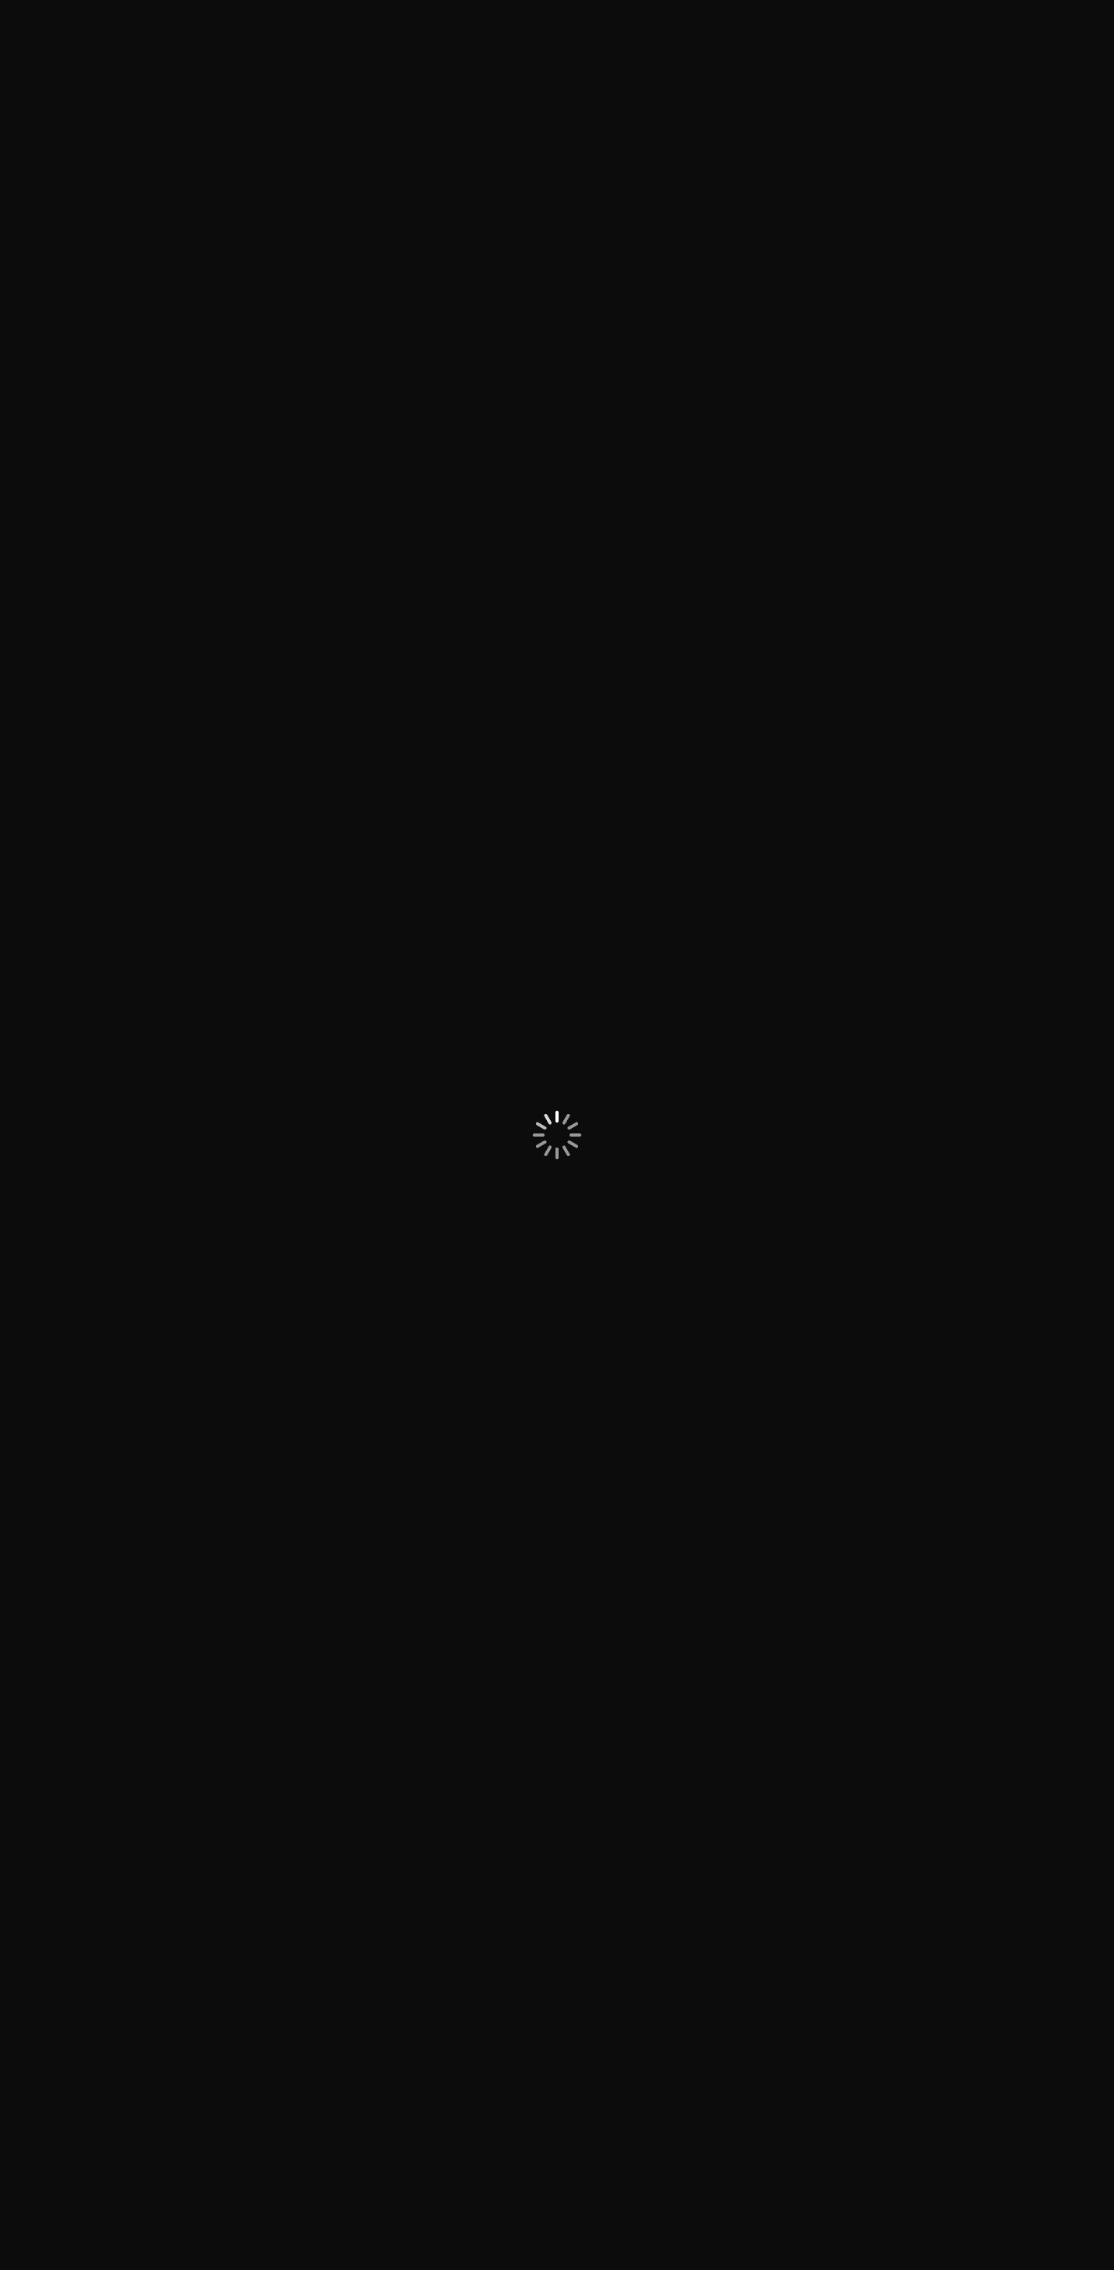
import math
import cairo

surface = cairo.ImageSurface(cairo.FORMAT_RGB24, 1114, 2270)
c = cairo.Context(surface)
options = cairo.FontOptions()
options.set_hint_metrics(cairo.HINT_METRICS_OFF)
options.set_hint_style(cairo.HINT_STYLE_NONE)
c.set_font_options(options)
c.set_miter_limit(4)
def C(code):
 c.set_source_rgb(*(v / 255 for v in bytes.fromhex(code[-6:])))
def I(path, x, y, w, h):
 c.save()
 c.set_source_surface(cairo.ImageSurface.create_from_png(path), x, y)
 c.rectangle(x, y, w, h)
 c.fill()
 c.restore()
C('0c0c0c')
c.paint()
I('1.png',532,1110,50,50)
surface.write_to_png('o.png')
